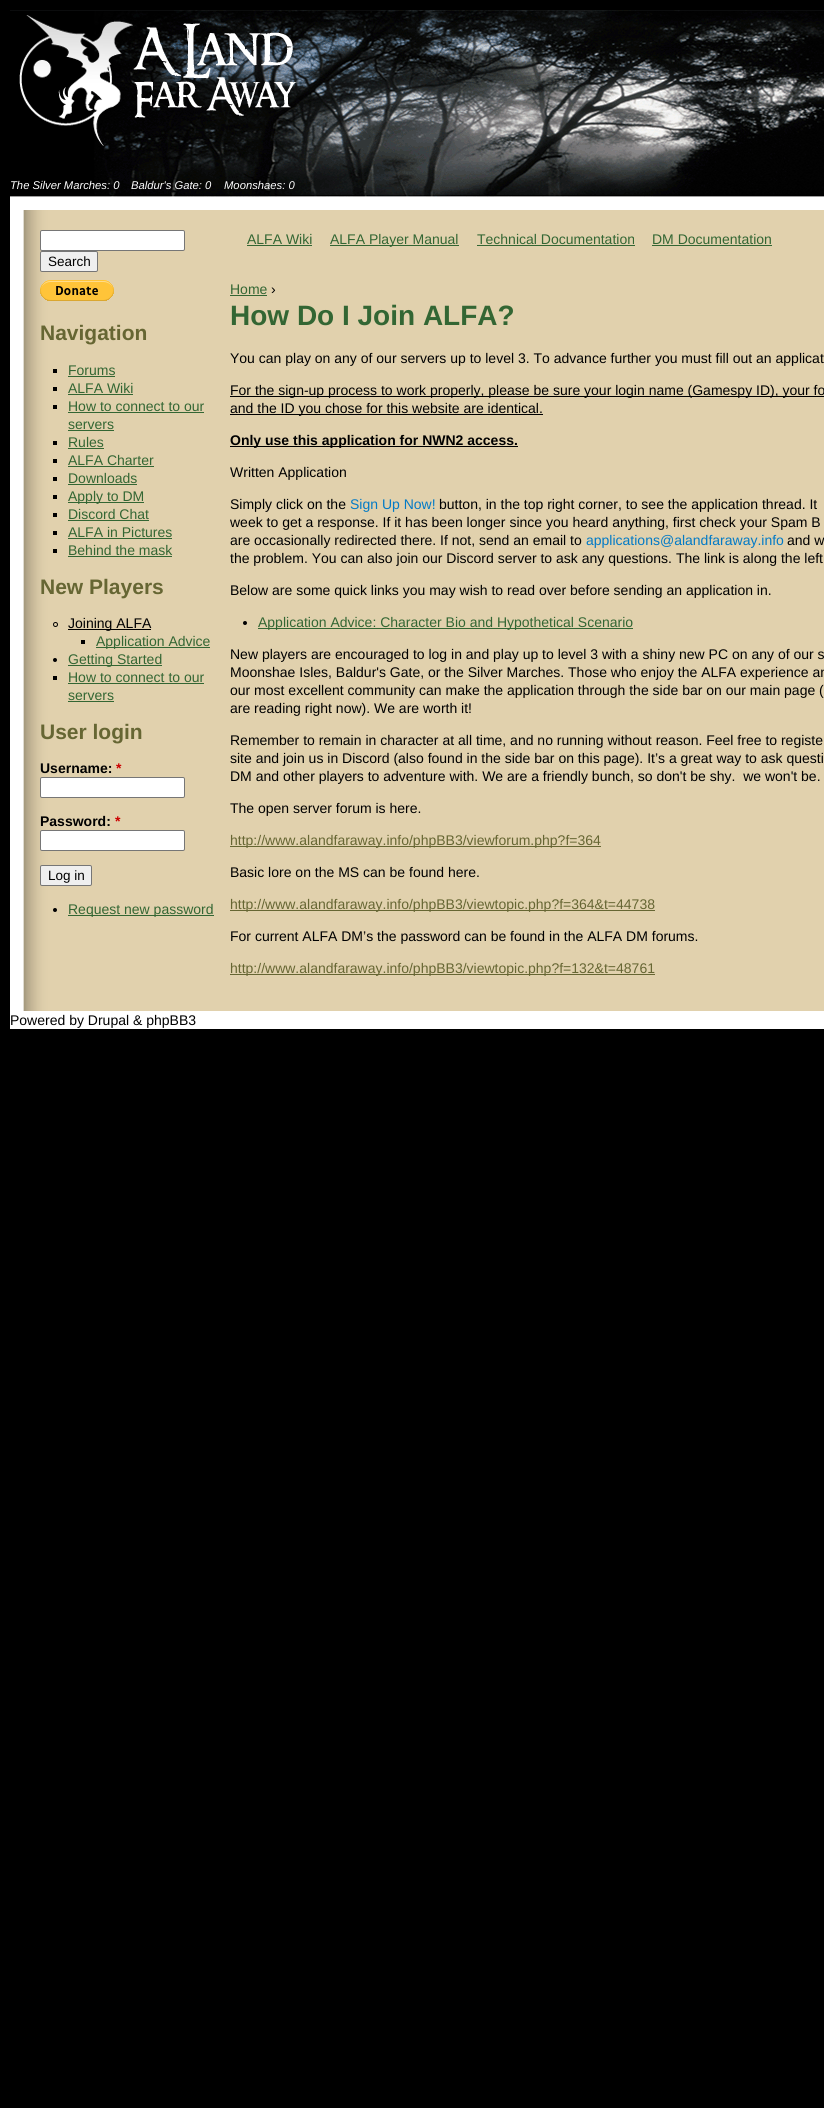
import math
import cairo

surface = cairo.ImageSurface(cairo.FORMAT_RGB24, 824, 2108)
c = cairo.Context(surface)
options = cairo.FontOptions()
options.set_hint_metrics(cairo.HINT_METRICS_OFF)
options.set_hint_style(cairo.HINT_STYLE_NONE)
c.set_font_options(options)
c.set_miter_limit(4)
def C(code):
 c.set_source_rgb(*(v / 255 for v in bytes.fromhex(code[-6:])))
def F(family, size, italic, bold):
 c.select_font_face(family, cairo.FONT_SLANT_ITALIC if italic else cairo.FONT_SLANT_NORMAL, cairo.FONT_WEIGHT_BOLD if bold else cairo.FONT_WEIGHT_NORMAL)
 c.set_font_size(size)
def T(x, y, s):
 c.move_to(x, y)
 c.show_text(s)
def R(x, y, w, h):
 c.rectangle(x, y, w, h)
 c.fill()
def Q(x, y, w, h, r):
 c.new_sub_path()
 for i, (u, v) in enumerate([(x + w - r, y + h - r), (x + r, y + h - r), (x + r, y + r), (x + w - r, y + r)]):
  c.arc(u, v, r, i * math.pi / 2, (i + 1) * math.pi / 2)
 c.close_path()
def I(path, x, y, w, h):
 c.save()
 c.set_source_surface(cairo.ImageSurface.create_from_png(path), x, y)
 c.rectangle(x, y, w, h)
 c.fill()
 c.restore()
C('000000')
c.paint()
I('1.png',10,210,814,801)
I('2.png',10,10,814,200)
I('3.png',19,15,283,131)
F('Liberation Sans',11.25,1,0)
C('ffffff')
T(10,189,'The Silver Marches: 0')
T(131,189,'Baldur\'s Gate: 0')
T(224,189,'Moonshaes: 0')
F('Liberation Sans',14,0,0)
C('336633')
T(247,244,'ALFA Wiki')
R(247,245,65,1)
R(330,245,129,1)
T(330,244,'ALFA Player Manual')
T(477,244,'Technical Documentation')
R(477,245,158,1)
T(652,244,'DM Documentation')
R(652,245,120,1)
C('ffffff')
Q(40.5,230.5,144,20,1.5)
c.fill_preserve()
C('767676')
c.set_line_width(1)
c.stroke()
C('efefef')
Q(40.5,251.5,57,20,1.5)
c.fill_preserve()
C('767676')
c.stroke()
F('Liberation Sans',13.5,0,0)
C('000000')
T(48,266,'Search')
I('4.png',40,280,74,21)
F('Liberation Sans',21,0,1)
C('666633')
T(40,340,'Navigation')
C('000000')
R(53,369,4,4)
F('Liberation Sans',14,0,0)
C('336633')
T(68,375,'Forums')
R(68,376,47,1)
C('000000')
R(53,387,4,4)
C('336633')
T(68,393,'ALFA Wiki')
R(68,394,65,1)
C('000000')
R(53,405,4,4)
C('336633')
T(68,411,'How to connect to our')
R(68,412,136,1)
T(68,429,'servers')
R(68,430,46,1)
C('000000')
R(53,441,4,4)
C('336633')
T(68,447,'Rules')
R(68,448,36,1)
C('000000')
R(53,459,4,4)
C('336633')
T(68,465,'ALFA Charter')
R(68,466,86,1)
C('000000')
R(53,477,4,4)
C('336633')
T(68,483,'Downloads')
R(68,484,69,1)
C('000000')
R(53,495,4,4)
C('336633')
R(68,502,76,1)
T(68,501,'Apply to DM')
C('000000')
R(53,513,4,4)
C('336633')
T(68,519,'Discord Chat')
R(68,520,81,1)
C('000000')
R(53,531,4,4)
C('336633')
T(68,537,'ALFA in Pictures')
R(68,538,104,1)
C('000000')
R(53,549,4,4)
C('336633')
T(68,555,'Behind the mask')
R(68,556,104,1)
F('Liberation Sans',21,0,1)
C('666633')
T(40,594,'New Players')
c.new_path()
c.arc(55.5,624.5,2,0,2 * math.pi)
C('000000')
c.stroke()
R(68,629,83,1)
F('Liberation Sans',14,0,0)
T(68,628,'Joining ALFA')
R(81,640,4,4)
C('336633')
R(96,647,114,1)
T(96,646,'Application Advice')
C('000000')
c.new_path()
c.arc(55,660,2,0,2 * math.pi)
c.fill()
C('336633')
R(68,665,94,1)
T(68,664,'Getting Started')
C('000000')
R(53,676,4,4)
C('336633')
T(68,682,'How to connect to our')
R(68,683,136,1)
T(68,700,'servers')
R(68,701,46,1)
F('Liberation Sans',21,0,1)
C('666633')
T(40,739,'User login')
F('Liberation Sans',14,0,1)
C('000000')
T(40,773,'Username:')
C('cc0000')
T(116,773,'*')
C('ffffff')
Q(40.5,777.5,144,20,1.5)
c.fill_preserve()
C('767676')
c.stroke()
C('000000')
T(40,826,'Password:')
C('cc0000')
T(115,826,'*')
C('ffffff')
Q(40.5,830.5,144,20,1.5)
c.fill_preserve()
C('767676')
c.stroke()
C('efefef')
Q(40.5,865.5,51,20,1.5)
c.fill_preserve()
C('767676')
c.stroke()
F('Liberation Sans',13.5,0,0)
C('000000')
T(48,880,'Log in')
c.new_path()
c.arc(55,910,2,0,2 * math.pi)
c.fill()
C('336633')
R(68,915,146,1)
F('Liberation Sans',14,0,0)
T(68,914,'Request new password')
T(230,294,'Home')
R(230,295,37,1)
C('000000')
T(271,294,'›')
F('Liberation Sans',28,0,1)
C('336633')
T(230,325,'How Do I Join ALFA?')
F('Liberation Sans',14,0,0)
C('000000')
T(230,363,'You can play on any of our servers up to level 3. To advance further you must fill out an applicat')
R(230,396,594,1)
T(230,395,'For the sign-up process to work properly, please be sure your login name (Gamespy ID), your fo')
R(230,414,313,1)
T(230,413,'and the ID you chose for this website are identical.')
R(230,446,288,1)
F('Liberation Sans',14,0,1)
T(230,445,'Only use this application for NWN2 access.')
F('Liberation Sans',14,0,0)
T(230,477,'Written Application')
T(230,509,'Simply click on the')
C('027ac6')
T(350,509,'Sign Up Now!')
C('000000')
T(439,509,'button, in the top right corner, to see the application thread. It')
T(230,527,'week to get a response. If it has been longer since you heard anything, first check your Spam B')
T(230,545,'are occasionally redirected there. If not, send an email to')
C('027ac6')
T(586,545,'applications@alandfaraway.info')
C('000000')
T(787,545,'and w')
T(230,563,'the problem. You can also join our Discord server to ask any questions. The link is along the left')
T(230,595,'Below are some quick links you may wish to read over before sending an application in.')
c.new_path()
c.arc(245,623,2,0,2 * math.pi)
c.fill()
C('336633')
R(258,628,375,1)
T(258,627,'Application Advice: Character Bio and Hypothetical Scenario')
C('000000')
T(230,659,'New players are encouraged to log in and play up to level 3 with a shiny new PC on any of our s')
T(230,677,'Moonshae Isles, Baldur\'s Gate, or the Silver Marches. Those who enjoy the ALFA experience an')
T(230,695,'our most excellent community can make the application through the side bar on our main page (')
T(230,713,'are reading right now). We are worth it!')
T(230,745,'Remember to remain in character at all time, and no running without reason. Feel free to registe')
T(230,763,'site and join us in Discord (also found in the side bar on this page). It’s a great way to ask questi')
T(230,781,'DM and other players to adventure with. We are a friendly bunch, so don\'t be shy.  we won\'t be.')
T(230,813,'The open server forum is here.')
C('666633')
R(230,846,371,1)
T(230,845,'http://www.alandfaraway.info/phpBB3/viewforum.php?f=364')
C('000000')
T(230,877,'Basic lore on the MS can be found here.')
C('666633')
R(230,910,425,1)
T(230,909,'http://www.alandfaraway.info/phpBB3/viewtopic.php?f=364&t=44738')
C('000000')
T(230,941,'For current ALFA DM’s the password can be found in the ALFA DM forums.')
C('666633')
R(230,974,425,1)
T(230,973,'http://www.alandfaraway.info/phpBB3/viewtopic.php?f=132&t=48761')
C('ffffff')
R(10,1011,814,18)
C('000000')
T(10,1025,'Powered by Drupal & phpBB3')
surface.write_to_png('o.png')
